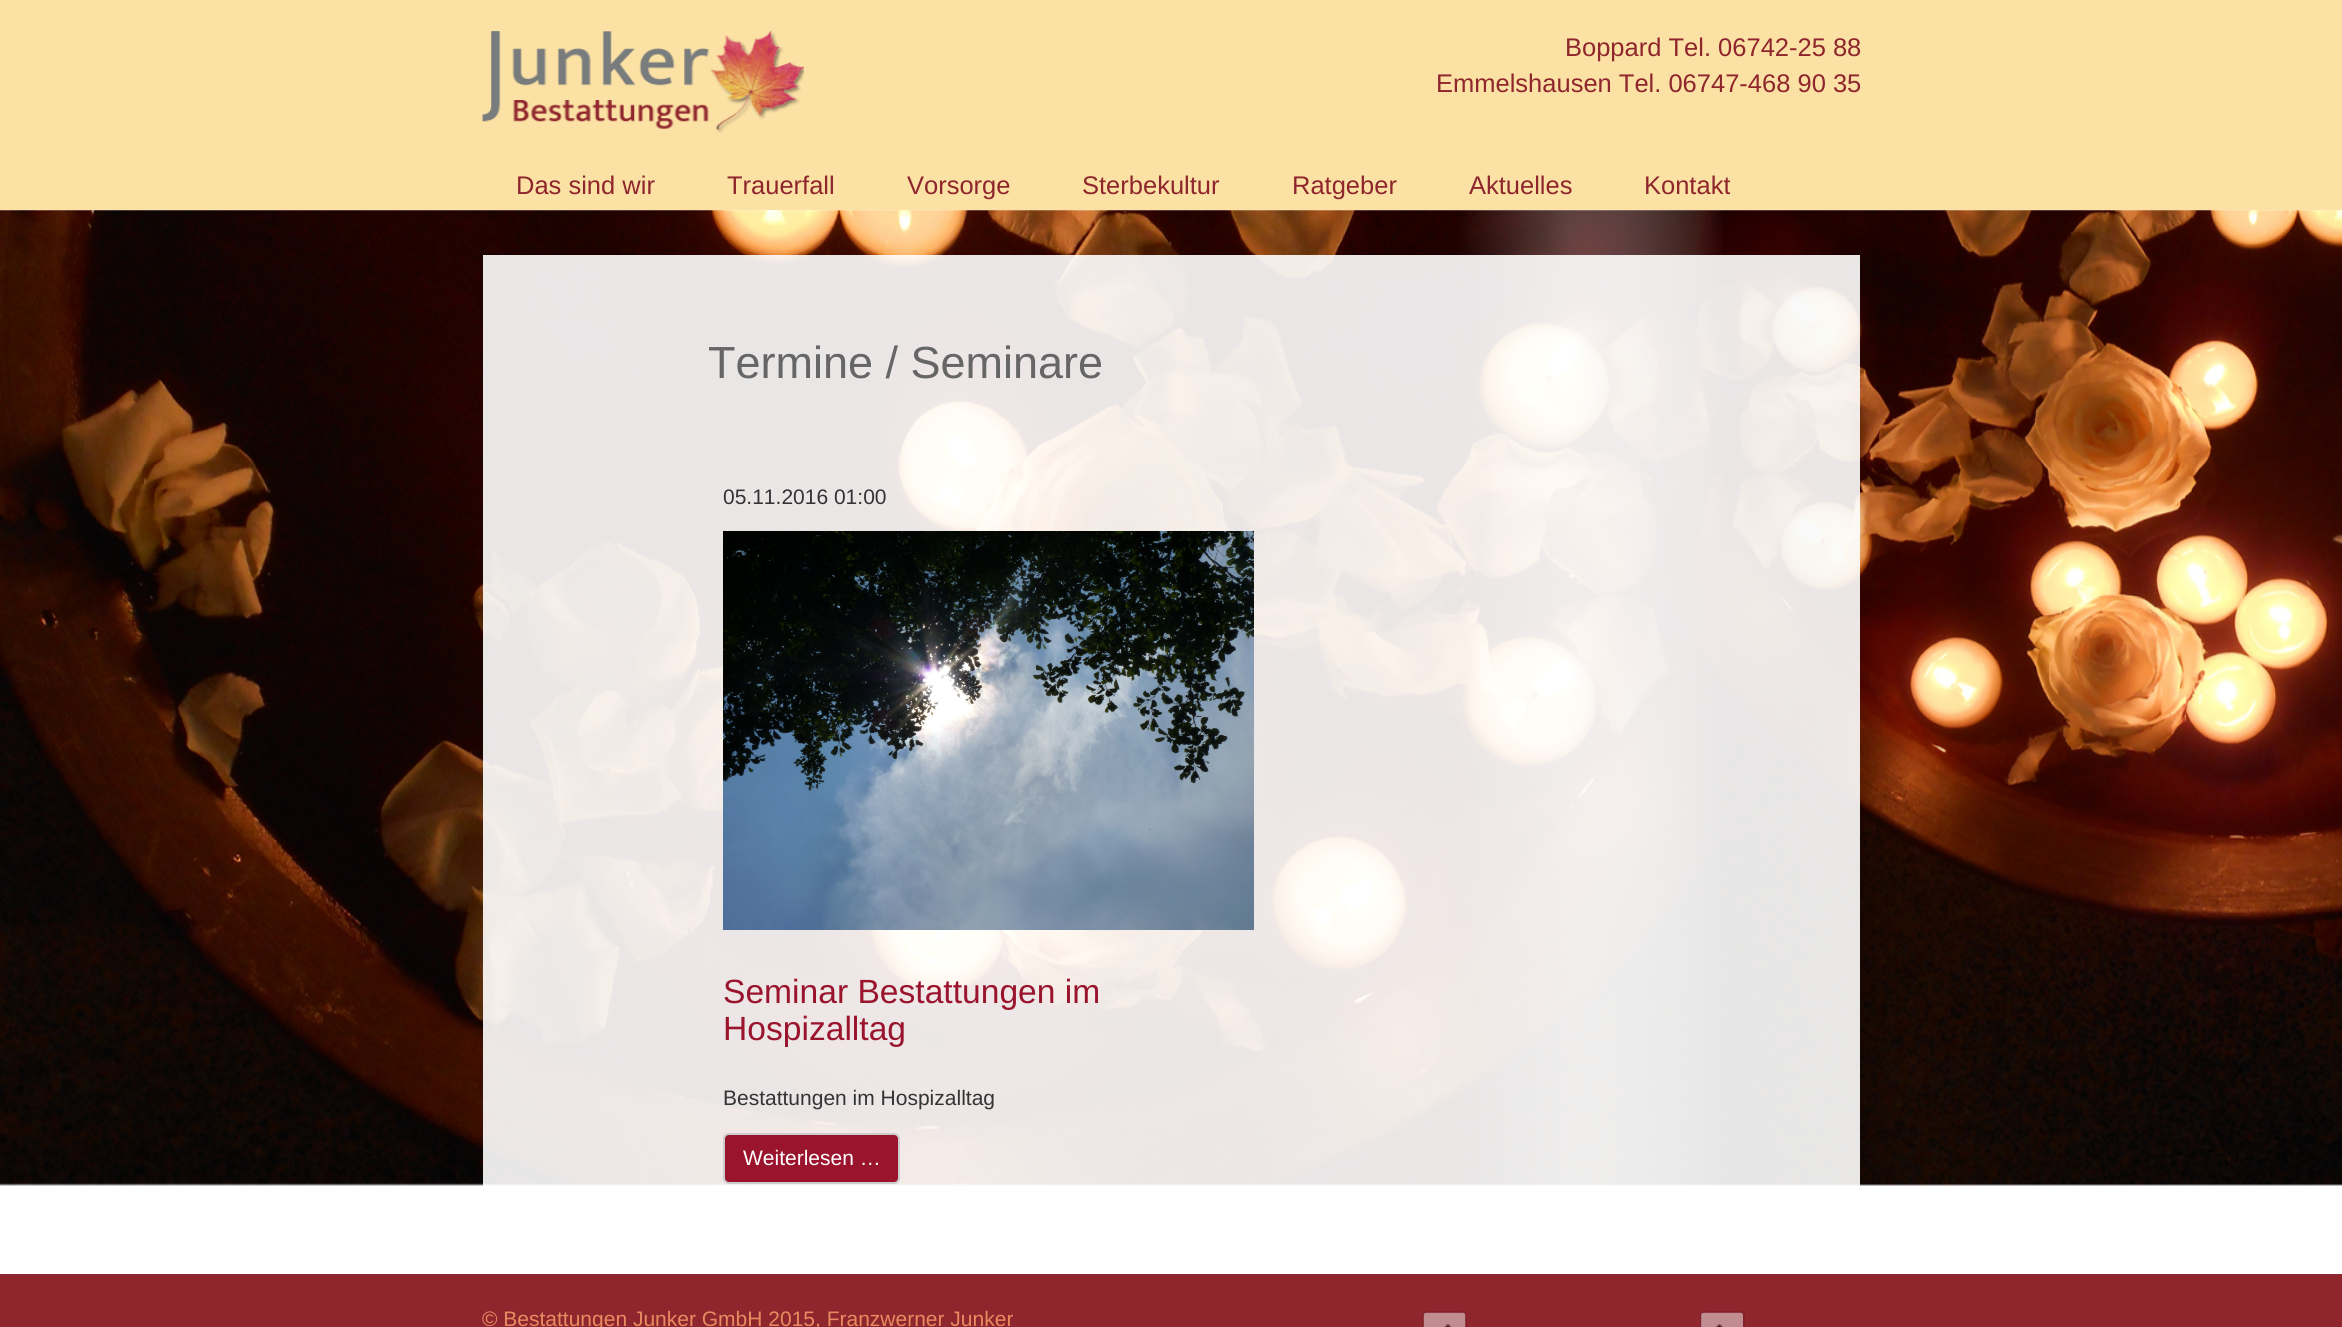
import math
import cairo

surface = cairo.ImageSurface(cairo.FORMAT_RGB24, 2342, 1327)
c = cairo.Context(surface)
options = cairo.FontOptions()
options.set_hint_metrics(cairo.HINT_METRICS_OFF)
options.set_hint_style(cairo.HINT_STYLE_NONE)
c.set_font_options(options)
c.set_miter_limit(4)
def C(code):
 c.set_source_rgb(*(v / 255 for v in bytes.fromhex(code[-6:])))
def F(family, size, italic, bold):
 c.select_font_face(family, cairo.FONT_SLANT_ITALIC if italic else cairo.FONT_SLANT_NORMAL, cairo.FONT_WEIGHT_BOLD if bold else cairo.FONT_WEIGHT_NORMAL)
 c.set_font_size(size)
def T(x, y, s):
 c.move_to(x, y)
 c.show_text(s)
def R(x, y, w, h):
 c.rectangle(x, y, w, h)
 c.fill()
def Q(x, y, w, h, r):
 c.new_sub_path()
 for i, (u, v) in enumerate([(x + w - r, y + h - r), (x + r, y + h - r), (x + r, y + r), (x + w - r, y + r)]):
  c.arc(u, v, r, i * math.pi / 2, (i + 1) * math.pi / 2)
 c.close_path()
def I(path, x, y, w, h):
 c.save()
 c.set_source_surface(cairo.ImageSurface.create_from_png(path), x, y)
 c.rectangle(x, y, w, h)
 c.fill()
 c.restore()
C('ffffff')
c.paint()
C('fbe1a4')
R(0,0,2342,210)
I('1.png',482,31,322,102)
F('Liberation Sans',25.5,0,0)
C('8f252d')
T(1565,56,'Boppard Tel. 06742-25 88')
T(1436,92,'Emmelshausen Tel. 06747-468 90 35')
T(516,194,'Das sind wir')
T(727,194,'Trauerfall')
T(907,194,'Vorsorge')
T(1082,194,'Sterbekultur')
T(1292,194,'Ratgeber')
T(1469,194,'Aktuelles')
T(1644,194,'Kontakt')
I('2.png',0,210,2342,976)
c.set_source_rgba(1,1,1,0.9)
R(483,255,1377,931)
F('Liberation Sans',45,0,0)
C('666666')
T(708,378,'Termine / Seminare')
F('Liberation Sans',21,0,0)
C('333333')
T(723,504,'05.11.2016 01:00')
I('3.png',723,531,531,399)
F('Liberation Sans',33.6,0,0)
C('9a142d')
T(723,1003,'Seminar Bestattungen im')
T(723,1040,'Hospizalltag')
F('Liberation Sans',21,0,0)
C('333333')
T(723,1105,'Bestattungen im Hospizalltag')
C('9a142d')
Q(724,1134,175,49,5)
c.fill_preserve()
C('cccccc')
c.stroke()
C('ffffff')
T(743,1165,'Weiterlesen …')
C('8f252d')
R(0,1274,2342,53)
C('e78c61')
T(482,1326,'© Bestattungen Junker GmbH 2015, Franzwerner Junker')
I('4.png',1423,1312,43,15)
Q(1423,1312,43,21,4)
c.set_source_rgba(0,0,0,0.1)
c.stroke()
I('5.png',1701,1312,42,15)
Q(1701,1312,43,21,4)
c.stroke()
surface.write_to_png('o.png')
